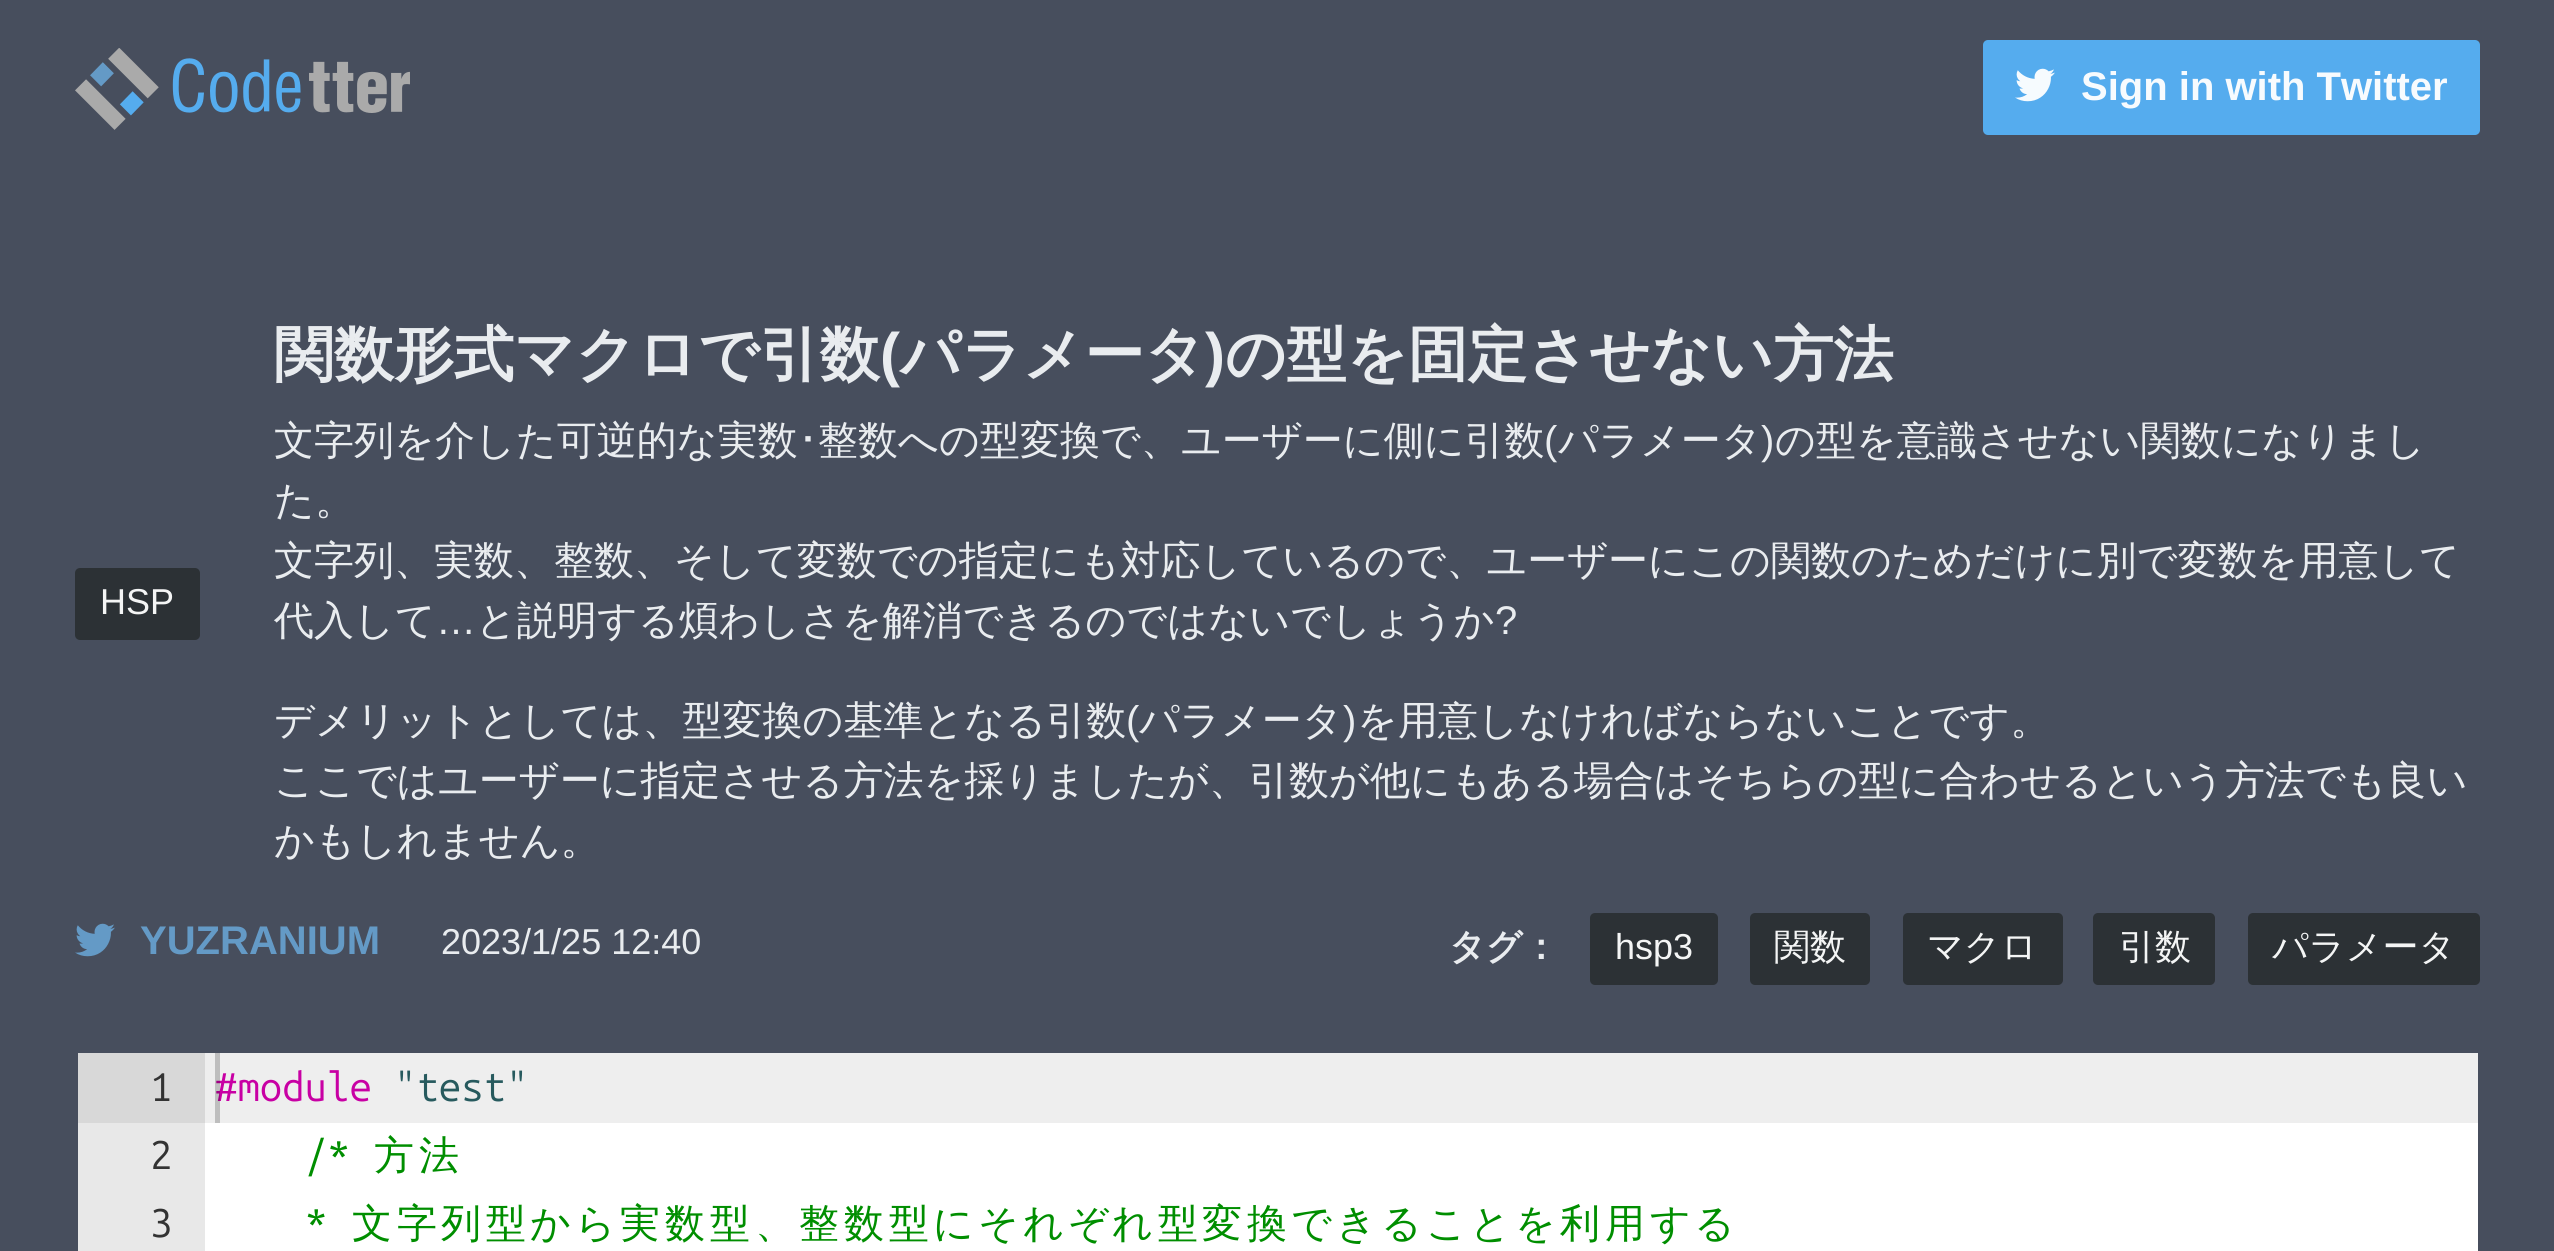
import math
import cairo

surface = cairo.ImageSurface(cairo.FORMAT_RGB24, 2554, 1251)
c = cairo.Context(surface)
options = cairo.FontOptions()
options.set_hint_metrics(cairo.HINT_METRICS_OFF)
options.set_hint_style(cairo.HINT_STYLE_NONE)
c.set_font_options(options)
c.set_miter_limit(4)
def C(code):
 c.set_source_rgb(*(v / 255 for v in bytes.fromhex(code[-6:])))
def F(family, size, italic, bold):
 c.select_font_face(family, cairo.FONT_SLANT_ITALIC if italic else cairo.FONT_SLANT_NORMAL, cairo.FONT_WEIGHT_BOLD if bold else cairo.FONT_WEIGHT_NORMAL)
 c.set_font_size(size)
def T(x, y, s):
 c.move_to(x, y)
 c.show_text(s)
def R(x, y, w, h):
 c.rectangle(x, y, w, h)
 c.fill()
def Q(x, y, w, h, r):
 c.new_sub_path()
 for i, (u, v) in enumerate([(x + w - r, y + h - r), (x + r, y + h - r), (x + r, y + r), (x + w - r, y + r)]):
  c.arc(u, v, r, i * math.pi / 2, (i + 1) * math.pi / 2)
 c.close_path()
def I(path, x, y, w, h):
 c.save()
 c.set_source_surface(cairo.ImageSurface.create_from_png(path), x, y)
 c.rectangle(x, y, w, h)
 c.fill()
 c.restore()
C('474e5d')
c.paint()
I('1.png',75,48,335,82)
C('55acee')
Q(1983,40,497,95,5)
c.fill()
I('2.png',2015,68,40,34)
F('Liberation Sans',40,0,1)
C('f7fbfe')
T(2081,100,'Sign in with Twitter')
C('2c3135')
Q(75,568,125,72,5)
c.fill()
F('Liberation Sans',36,0,0)
C('f4f5f5')
T(100,614,'HSP')
F('WenQuanYi Zen Hei',60,0,1)
C('e9ecef')
T(274,375,'関数形式マクロで引数')
F('Liberation Sans',60,0,1)
T(880,375,'(')
F('WenQuanYi Zen Hei',60,0,1)
T(900,375,'パラメータ')
F('Liberation Sans',60,0,1)
T(1205,375,')')
F('WenQuanYi Zen Hei',60,0,1)
T(1225,375,'の型を固定させない方法')
F('WenQuanYi Zen Hei Medium',40,0,0)
T(274,454,'文字列を介した可逆的な実数')
F('IPAPGothic',40,0,0)
T(798,454,'･')
F('WenQuanYi Zen Hei Medium',40,0,0)
T(818,454,'整数への型変換で、ユーザーに側に引数')
F('Liberation Sans',40,0,0)
T(1544,454,'(')
F('WenQuanYi Zen Hei Medium',40,0,0)
T(1558,454,'パラメータ')
F('Liberation Sans',40,0,0)
T(1761,454,')')
F('WenQuanYi Zen Hei Medium',40,0,0)
T(1775,454,'の型を意識させない関数になりまし')
T(274,514,'た。')
T(274,574,'文字列、実数、整数、そして変数での指定にも対応しているので、ユーザーにこの関数のためだけに別で変数を用意して')
T(274,634,'代入して')
F('Liberation Sans',40,0,0)
T(436,634,'…')
F('WenQuanYi Zen Hei Medium',40,0,0)
T(476,634,'と説明する煩わしさを解消できるのではないでしょうか')
F('Liberation Sans',40,0,0)
T(1495,634,'?')
F('WenQuanYi Zen Hei Medium',40,0,0)
T(274,734,'デメリットとしては、型変換の基準となる引数')
F('Liberation Sans',40,0,0)
T(1126,734,'(')
F('WenQuanYi Zen Hei Medium',40,0,0)
T(1139,734,'パラメータ')
F('Liberation Sans',40,0,0)
T(1343,734,')')
F('WenQuanYi Zen Hei Medium',40,0,0)
T(1357,734,'を用意しなければならないことです。')
T(274,794,'ここではユーザーに指定させる方法を採りましたが、引数が他にもある場合はそちらの型に合わせるという方法でも良い')
T(274,854,'かもしれません。')
I('3.png',75,923,40,34)
F('Liberation Sans',40,0,1)
C('649ac6')
T(140,954,'YUZRANIUM')
F('Liberation Sans',36,0,0)
C('e9ecef')
T(441,954,'2023/1/25 12:40')
F('WenQuanYi Zen Hei',36,0,1)
T(1449,959,'タグ：')
C('2c3135')
Q(1590,913,128,72,5)
c.fill()
F('Liberation Sans',36,0,0)
C('f4f5f5')
T(1615,959,'hsp3')
C('2c3135')
Q(1750,913,120,72,5)
c.fill()
F('WenQuanYi Zen Hei Medium',36,0,0)
C('f4f5f5')
T(1774,959,'関数')
C('2c3135')
Q(1903,913,160,72,5)
c.fill()
C('f4f5f5')
T(1927,959,'マクロ')
C('2c3135')
Q(2093,913,122,72,5)
c.fill()
C('f4f5f5')
T(2119,959,'引数')
C('2c3135')
Q(2248,913,232,72,5)
c.fill()
C('f4f5f5')
T(2272,959,'パラメータ')
C('ffffff')
R(205,1123,2273,128)
C('e8e8e8')
R(78,1123,127,128)
C('d8d8d8')
R(78,1053,127,70)
F('Ubuntu Mono',40,0,0)
C('333333')
T(150,1101,'1')
T(150,1169,'2')
T(150,1237,'3')
C('eeeeee')
R(205,1053,2273,70)
C('c800a4')
T(215,1101,'#module')
c.set_source_rgba(0,0,0,0.2)
R(215,1053,5,70)
C('275a5e')
T(394,1101,'"test"')
C('008e00')
T(305,1169,'/*')
F('WenQuanYi Zen Hei Medium',40,0,0)
T(374,1169,'方')
T(419,1169,'法')
F('Ubuntu Mono',40,0,0)
T(305,1237,'*')
F('WenQuanYi Zen Hei Medium',40,0,0)
T(352,1237,'文')
T(397,1237,'字')
T(441,1237,'列')
T(486,1237,'型')
T(530,1237,'か')
T(575,1237,'ら')
T(620,1237,'実')
T(665,1237,'数')
T(710,1237,'型')
T(755,1237,'、')
T(799,1237,'整')
T(844,1237,'数')
T(889,1237,'型')
T(933,1237,'に')
T(978,1237,'そ')
T(1023,1237,'れ')
T(1068,1237,'ぞ')
T(1112,1237,'れ')
T(1158,1237,'型')
T(1202,1237,'変')
T(1247,1237,'換')
T(1291,1237,'で')
T(1336,1237,'き')
T(1381,1237,'る')
T(1426,1237,'こ')
T(1470,1237,'と')
T(1515,1237,'を')
T(1560,1237,'利')
T(1605,1237,'用')
T(1650,1237,'す')
T(1694,1237,'る')
surface.write_to_png('o.png')
